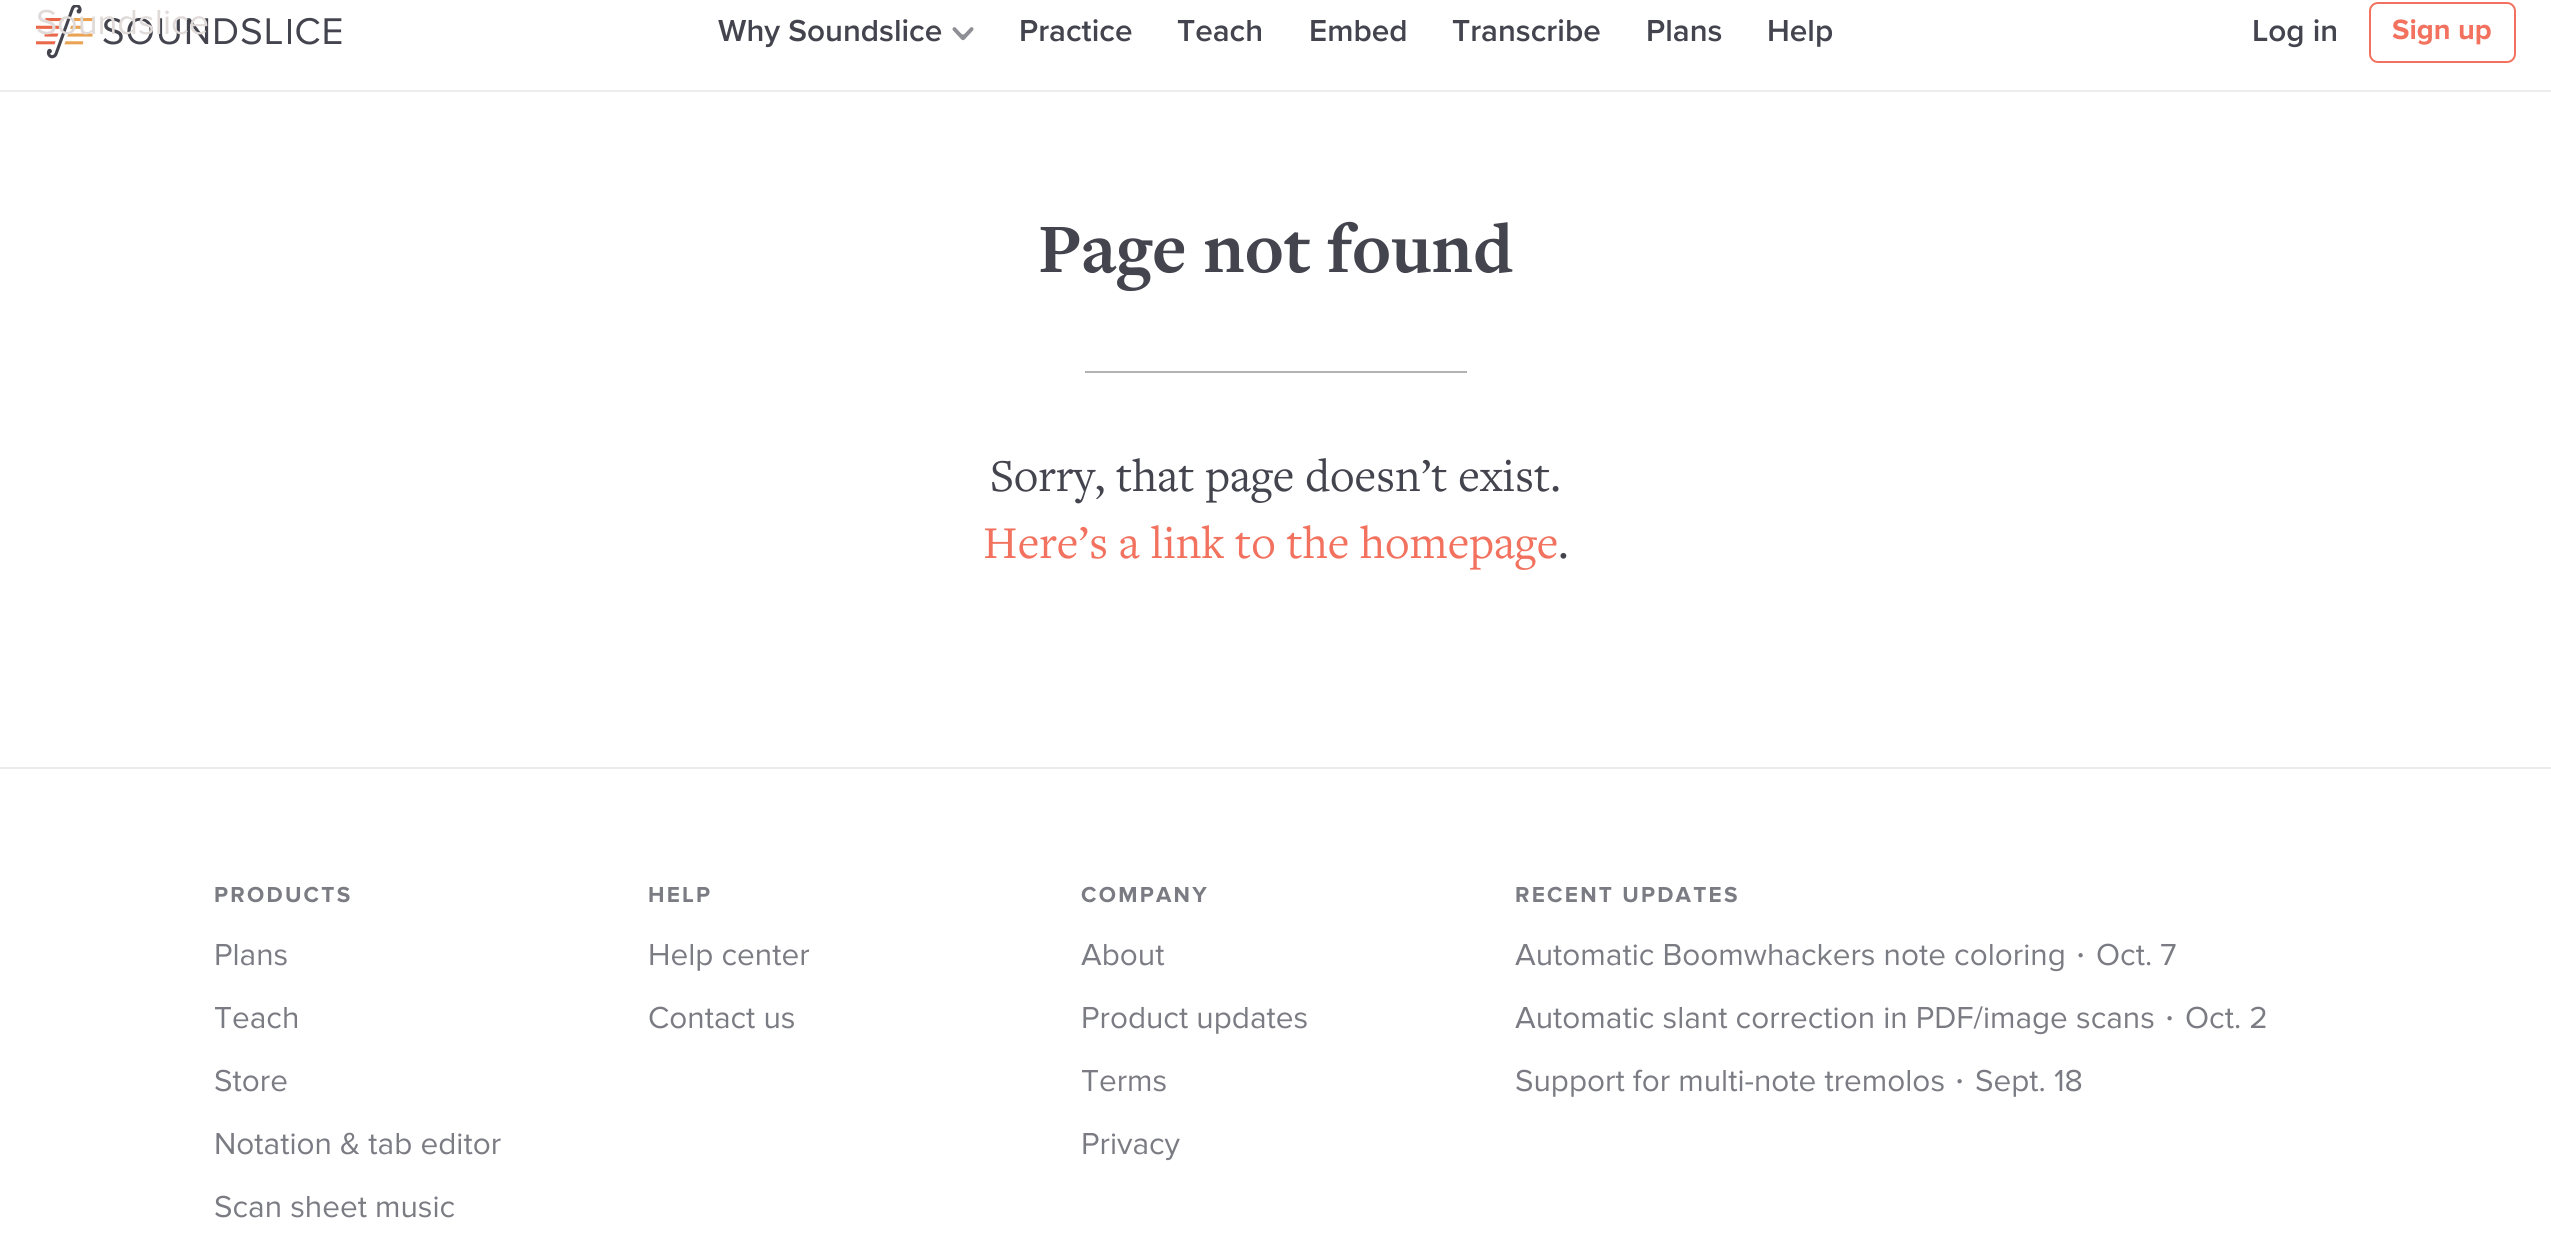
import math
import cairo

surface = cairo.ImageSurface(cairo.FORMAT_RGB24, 2551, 1242)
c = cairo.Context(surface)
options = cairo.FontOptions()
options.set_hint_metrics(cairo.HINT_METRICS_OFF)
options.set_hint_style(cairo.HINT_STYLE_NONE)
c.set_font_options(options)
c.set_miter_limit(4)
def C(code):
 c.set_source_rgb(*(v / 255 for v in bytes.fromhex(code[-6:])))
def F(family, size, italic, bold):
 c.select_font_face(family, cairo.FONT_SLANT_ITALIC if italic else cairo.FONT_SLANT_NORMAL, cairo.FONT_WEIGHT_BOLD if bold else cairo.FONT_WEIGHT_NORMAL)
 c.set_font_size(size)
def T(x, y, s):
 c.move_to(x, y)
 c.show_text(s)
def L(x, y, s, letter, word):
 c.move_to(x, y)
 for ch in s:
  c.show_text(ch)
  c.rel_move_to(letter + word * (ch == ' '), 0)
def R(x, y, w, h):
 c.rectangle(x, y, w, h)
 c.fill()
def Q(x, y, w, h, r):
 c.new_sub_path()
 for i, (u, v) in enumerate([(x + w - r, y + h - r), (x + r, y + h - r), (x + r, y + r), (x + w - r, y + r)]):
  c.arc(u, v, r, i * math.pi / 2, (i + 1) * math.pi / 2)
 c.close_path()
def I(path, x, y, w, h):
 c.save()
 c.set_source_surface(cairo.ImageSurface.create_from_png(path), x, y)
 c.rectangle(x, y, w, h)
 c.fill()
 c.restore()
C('ffffff')
c.paint()
C('ececed')
R(0,90,2551,2)
I('1.png',36,5,306,54)
F('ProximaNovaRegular',36,0,0)
C('e0dad8')
T(36,34,'Soundslice')
F('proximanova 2',31.5,0,0)
C('43444e')
T(718,41,'Why Soundslice')
I('2.png',952,27,22,14)
T(1019,41,'Practice')
T(1177,41,'Teach')
T(1309,41,'Embed')
T(1452,41,'Transcribe')
T(1646,41,'Plans')
T(1767,41,'Help')
T(2252,41,'Log in')
Q(2370,3,145,59,8)
C('f2725f')
c.stroke()
F('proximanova',29,0,0)
T(2392,39,'Sign up')
F('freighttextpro',72,0,1)
C('43444e')
T(1038,272,'Page not found')
C('b3b3b3')
R(1085,371,382,2)
F('freighttextpro',47.25,0,0)
C('43444e')
T(990,491,'Sorry, that page doesn’t exist.')
C('f2725f')
T(983,558,'Here’s a link to the homepage')
C('43444e')
T(1558,558,'.')
C('ececed')
R(0,767,2551,2)
F('proximanova',22.5,0,0)
C('7b7c83')
L(214,902,'PRODUCTS',2.25,0)
F('ProximaNovaRegular',31.5,0,0)
T(214,965,'Plans')
T(214,1028,'Teach')
T(214,1091,'Store')
T(214,1154,'Notation & tab editor')
T(214,1217,'Scan sheet music')
F('proximanova',22.5,0,0)
L(648,902,'HELP',2.25,0)
F('ProximaNovaRegular',31.5,0,0)
T(648,965,'Help center')
T(648,1028,'Contact us')
F('proximanova',22.5,0,0)
L(1081,902,'COMPANY',2.25,0)
F('ProximaNovaRegular',31.5,0,0)
T(1081,965,'About')
T(1081,1028,'Product updates')
T(1081,1091,'Terms')
T(1081,1154,'Privacy')
F('proximanova',22.5,0,0)
L(1515,902,'RECENT UPDATES',2.25,0)
F('ProximaNovaRegular',31.5,0,0)
T(1515,965,'Automatic Boomwhackers note coloring')
F('ProximaNovaRegular',40,0,0)
T(2076,965,'∙')
F('ProximaNovaRegular',31.5,0,0)
T(2096,965,'Oct. 7')
T(1515,1028,'Automatic slant correction in PDF/image scans')
F('ProximaNovaRegular',40,0,0)
T(2165,1028,'∙')
F('ProximaNovaRegular',31.5,0,0)
T(2185,1028,'Oct. 2')
T(1515,1091,'Support for multi-note tremolos')
F('ProximaNovaRegular',40,0,0)
T(1955,1091,'∙')
F('ProximaNovaRegular',31.5,0,0)
T(1975,1091,'Sept. 18')
surface.write_to_png('o.png')
